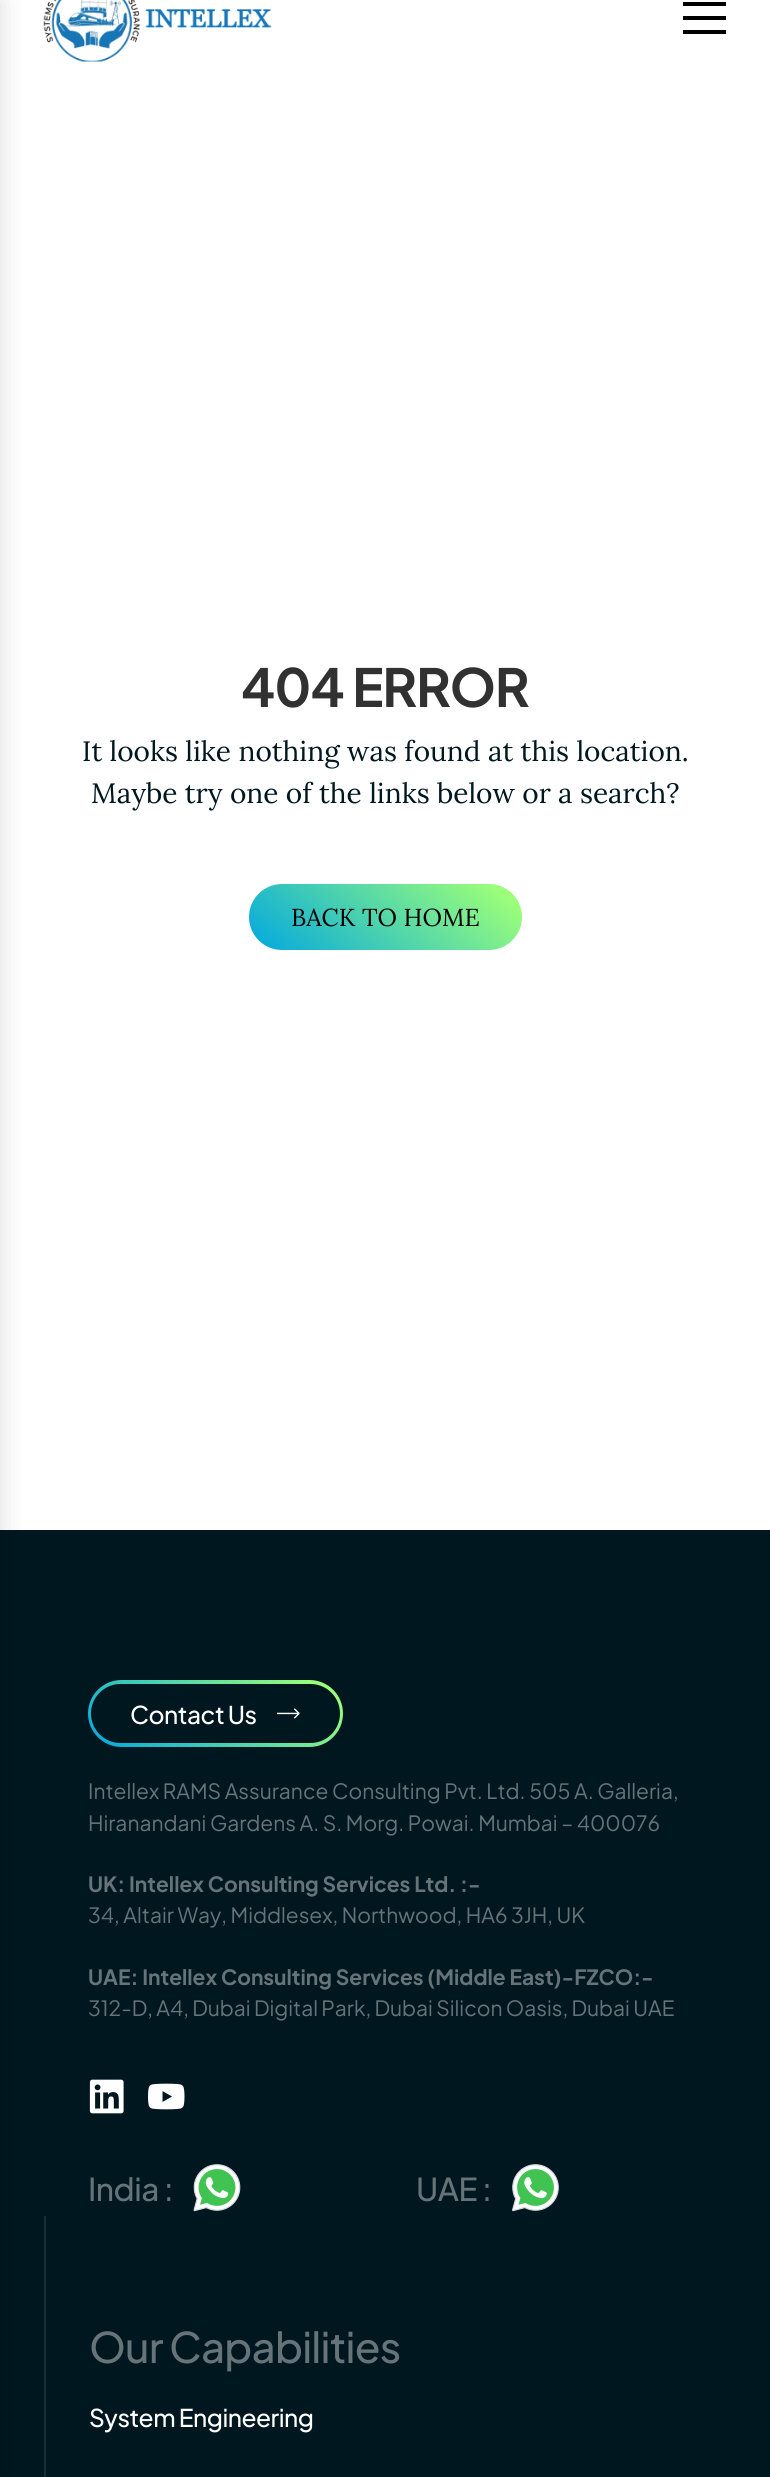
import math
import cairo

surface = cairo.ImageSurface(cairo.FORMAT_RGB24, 770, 2477)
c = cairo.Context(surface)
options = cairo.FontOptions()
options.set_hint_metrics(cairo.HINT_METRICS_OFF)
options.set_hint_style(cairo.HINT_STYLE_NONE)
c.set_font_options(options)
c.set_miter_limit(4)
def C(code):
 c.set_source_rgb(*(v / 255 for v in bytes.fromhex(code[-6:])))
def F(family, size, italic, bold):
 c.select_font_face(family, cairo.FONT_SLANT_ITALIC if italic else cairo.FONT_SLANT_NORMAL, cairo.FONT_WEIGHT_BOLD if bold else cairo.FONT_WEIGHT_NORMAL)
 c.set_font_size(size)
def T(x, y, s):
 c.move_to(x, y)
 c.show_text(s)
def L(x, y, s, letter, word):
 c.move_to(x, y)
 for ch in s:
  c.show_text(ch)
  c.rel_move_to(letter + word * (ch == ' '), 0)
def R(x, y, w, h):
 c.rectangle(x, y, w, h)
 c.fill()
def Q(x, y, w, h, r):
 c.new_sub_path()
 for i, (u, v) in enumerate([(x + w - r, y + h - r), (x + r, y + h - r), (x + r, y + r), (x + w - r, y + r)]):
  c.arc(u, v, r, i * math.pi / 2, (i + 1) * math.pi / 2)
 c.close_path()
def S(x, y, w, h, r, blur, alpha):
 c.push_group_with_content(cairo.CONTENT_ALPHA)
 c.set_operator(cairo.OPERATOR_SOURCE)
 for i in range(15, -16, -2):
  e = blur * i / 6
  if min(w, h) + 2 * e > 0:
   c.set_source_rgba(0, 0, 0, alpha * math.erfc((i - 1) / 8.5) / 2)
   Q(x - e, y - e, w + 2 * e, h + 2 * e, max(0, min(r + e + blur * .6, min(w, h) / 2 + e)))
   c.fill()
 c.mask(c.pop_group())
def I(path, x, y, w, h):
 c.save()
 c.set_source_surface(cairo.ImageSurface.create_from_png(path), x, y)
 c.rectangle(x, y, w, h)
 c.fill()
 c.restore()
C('ffffff')
c.paint()
C('00171f')
R(0,1530,770,947)
C('000000')
S(-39,0,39,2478,0,13,.14)
C('000000')
R(683,2,43,4)
R(683,16,43,4)
R(683,30,43,4)
I('1.png',43,0,229,62)
F('Plus Jakarta Sans',52.5,0,1)
C('313131')
L(241,707,'404 ERROR',-1,0)
F('Lora',28,0,0)
C('00171f')
T(82,761,'It looks like nothing was found at this location.')
T(91,803,'Maybe try one of the links below or a search?')
gradient = cairo.LinearGradient(312,1004,458,830)
gradient.add_color_stop_rgba(0,0,0.655,0.882,1)
gradient.add_color_stop_rgba(.92,0.612,1,0.475,1)
c.set_source(gradient)
Q(249,884,273,66,33)
c.fill()
F('Lora',24.5,0,0)
C('000000')
T(291,926,'BACK TO HOME')
gradient = cairo.LinearGradient(146,1796,284,1631)
gradient.add_color_stop_rgba(0,0,0.655,0.882,1)
gradient.add_color_stop_rgba(.92,0.612,1,0.475,1)
c.set_source(gradient)
Q(88,1680,255,67,33.5)
c.fill()
C('00171f')
Q(91,1684,249,59,29.5)
c.fill()
F('Plus Jakarta Sans Medium',24.5,0,0)
C('ffffff')
L(130,1724,'Contact Us',-.5,0)
I('2.png',277,1708,23,11)
F('Plus Jakarta Sans',21,0,0)
C('667479')
T(88,1799,'Intellex RAMS Assurance Consulting Pvt. Ltd. 505 A. Galleria,')
T(88,1831,'Hiranandani Gardens A. S. Morg. Powai. Mumbai – 400076')
F('Plus Jakarta Sans',21,0,1)
T(88,1892,'UK: Intellex Consulting Services Ltd. :-')
F('Plus Jakarta Sans',21,0,0)
T(88,1923,'34, Altair Way, Middlesex, Northwood, HA6 3JH, UK')
F('Plus Jakarta Sans',21,0,1)
T(88,1985,'UAE: Intellex Consulting Services (Middle East)-FZCO:-')
F('Plus Jakarta Sans',21,0,0)
L(88,2016,'312-D, A4, Dubai Digital Park, Dubai Silicon Oasis, Dubai UAE',0,-.25)
I('3.png',89,2079,35,35)
I('4.png',148,2083,37,27)
F('Plus Jakarta Sans Medium',31.5,0,0)
L(88,2201,'India :',-.5,0)
I('5.png',193,2164,48,48)
L(416,2201,'UAE :',-.5,0)
I('6.png',512,2164,47,48)
C('1a2e35')
R(44,2216,2,261)
F('Plus Jakarta Sans Medium',42,0,0)
C('667479')
L(89,2363,'Our Capabilities',-.8,0)
F('Plus Jakarta Sans Medium',24.5,0,0)
C('ffffff')
L(89,2427,'System Engineering',-.5,0)
surface.write_to_png('o.png')
